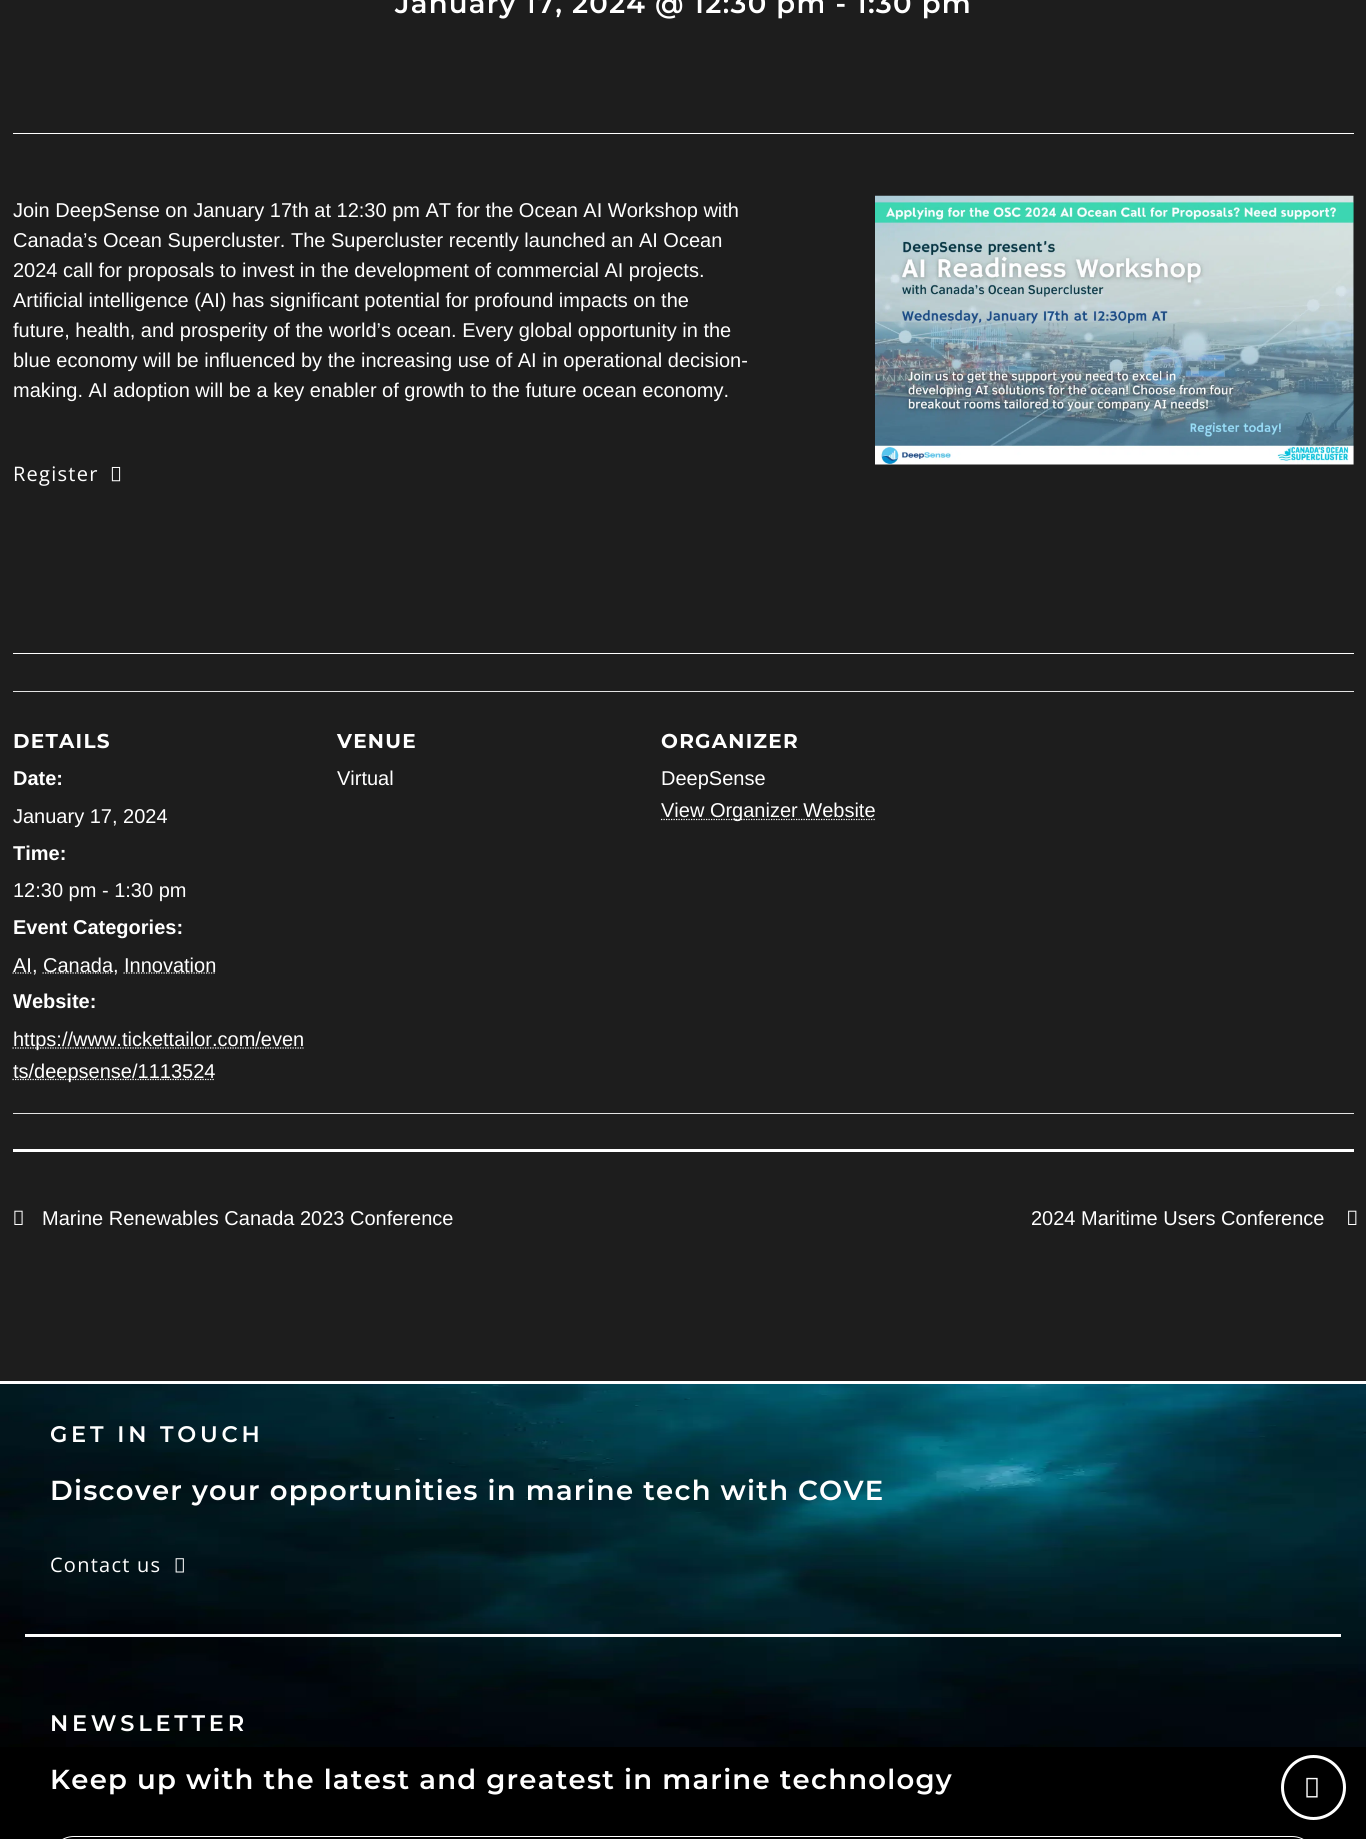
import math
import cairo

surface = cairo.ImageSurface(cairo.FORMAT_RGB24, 1366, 1839)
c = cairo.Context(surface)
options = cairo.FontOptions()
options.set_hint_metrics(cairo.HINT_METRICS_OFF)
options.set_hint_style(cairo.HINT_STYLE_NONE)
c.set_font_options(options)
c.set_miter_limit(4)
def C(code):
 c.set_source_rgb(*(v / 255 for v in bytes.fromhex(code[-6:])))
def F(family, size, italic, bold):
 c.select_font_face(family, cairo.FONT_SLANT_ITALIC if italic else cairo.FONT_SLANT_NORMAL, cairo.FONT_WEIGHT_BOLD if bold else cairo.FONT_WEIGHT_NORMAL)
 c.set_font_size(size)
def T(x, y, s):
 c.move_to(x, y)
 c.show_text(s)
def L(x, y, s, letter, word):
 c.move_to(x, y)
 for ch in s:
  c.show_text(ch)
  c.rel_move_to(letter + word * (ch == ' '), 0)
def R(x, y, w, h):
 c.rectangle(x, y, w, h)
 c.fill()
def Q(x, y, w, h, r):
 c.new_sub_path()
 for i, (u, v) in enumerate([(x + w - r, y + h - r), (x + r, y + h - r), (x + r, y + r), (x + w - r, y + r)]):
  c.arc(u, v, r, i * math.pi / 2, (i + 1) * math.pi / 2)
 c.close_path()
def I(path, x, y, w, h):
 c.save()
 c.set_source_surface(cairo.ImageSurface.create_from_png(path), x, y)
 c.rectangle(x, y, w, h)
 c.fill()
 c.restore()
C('1d1d1d')
c.paint()
F('Montserrat SemiBold',27.5,0,0)
C('ffffff')
L(395,13,'January 17, 2024 @ 12:30 pm - 1:30 pm',1.25,0)
R(13,133,1341,1)
R(13,653,1341,1)
F('Liberation Sans',20,0,0)
T(13,217,'Join DeepSense on January 17th at 12:30 pm AT for the Ocean AI Workshop with')
T(13,247,'Canada’s Ocean Supercluster. The Supercluster recently launched an AI Ocean')
T(13,277,'2024 call for proposals to invest in the development of commercial AI projects.')
T(13,307,'Artificial intelligence (AI) has significant potential for profound impacts on the')
T(13,337,'future, health, and prosperity of the world’s ocean. Every global opportunity in the')
T(13,367,'blue economy will be influenced by the increasing use of AI in operational decision-')
T(13,397,'making. AI adoption will be a key enabler of growth to the future ocean economy.')
I('1.png',875,195,479,270)
F('Open Sans',20,0,0)
L(13,481,'Register',1.25,0)
I('2.png',111,466,10,16)
C('e4e4e4')
R(13,691,1341,1)
F('Montserrat',20,0,1)
C('ffffff')
L(13,748,'DETAILS',1.25,0)
F('Liberation Sans',20,0,1)
T(13,785,'Date:')
F('Liberation Sans',20,0,0)
T(13,823,'January 17, 2024')
c.save()
c.rectangle(13,133,1341,980)
c.clip()
F('Liberation Sans',20,0,1)
T(13,860,'Time:')
c.restore()
T(13,897,'12:30 pm - 1:30 pm')
F('Liberation Sans',20,0,1)
T(13,934,'Event Categories:')
c.new_path()
c.move_to(12.5,973)
c.line_to(31.5,973)
c.set_line_width(1.2)
c.set_dash([1.25,1.25])
c.stroke()
F('Liberation Sans',20,0,0)
T(13,972,'AI,')
c.new_path()
c.move_to(42.5,973)
c.line_to(112.5,973)
c.stroke()
T(43,972,'Canada,')
c.new_path()
c.move_to(123.5,973)
c.line_to(216,973)
c.stroke()
T(124,972,'Innovation')
F('Liberation Sans',20,0,1)
T(13,1008,'Website:')
c.new_path()
c.move_to(12.5,1048)
c.line_to(303.5,1048)
c.stroke()
F('Liberation Sans',20,0,0)
T(13,1046,'https://www.tickettailor.com/even')
c.new_path()
c.move_to(12.5,1079.5)
c.line_to(215,1079.5)
c.stroke()
T(13,1078,'ts/deepsense/1113524')
F('Montserrat',20,0,1)
L(337,748,'VENUE',1.25,0)
F('Liberation Sans',20,0,0)
T(337,785,'Virtual')
F('Montserrat',20,0,1)
L(661,748,'ORGANIZER',1.25,0)
F('Liberation Sans',20,0,0)
T(661,785,'DeepSense')
c.new_path()
c.move_to(661,819.5)
c.line_to(876,819.5)
c.stroke()
T(661,817,'View Organizer Website')
C('e4e4e4')
R(13,1113,1341,1)
C('ffffff')
R(13,1149,1341,3)
I('3.png',14,1210,9,15)
T(42,1225,'Marine Renewables Canada 2023 Conference')
T(1031,1225,'2024 Maritime Users Conference')
I('4.png',1348,1210,9,15)
C('000000')
R(0,1747,1366,92)
I('5.png',0,1384,1366,363)
C('ffffff')
R(0,1381,1366,3)
F('Montserrat SemiBold',22.5,0,0)
L(50,1442,'GET IN TOUCH',3.75,0)
F('Montserrat SemiBold',27.5,0,0)
L(50,1500,'Discover your opportunities in marine tech with COVE',1.25,0)
F('Open Sans',20,0,0)
L(50,1572,'Contact us',1.25,0)
I('6.png',175,1558,9,15)
R(25,1634,1316,3)
F('Montserrat SemiBold',22.5,0,0)
L(50,1731,'NEWSLETTER',3.75,0)
F('Montserrat SemiBold',27.5,0,0)
L(50,1789,'Keep up with the latest and greatest in marine technology',1.25,0)
Q(50.5,1836.5,1265,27,23.5)
c.set_line_width(1)
c.set_dash([])
c.stroke()
c.arc(1313.5,1787.5,31,0,2 * math.pi)
c.set_line_width(3)
c.stroke()
I('7.png',1306,1777,12,21)
surface.write_to_png('o.png')
